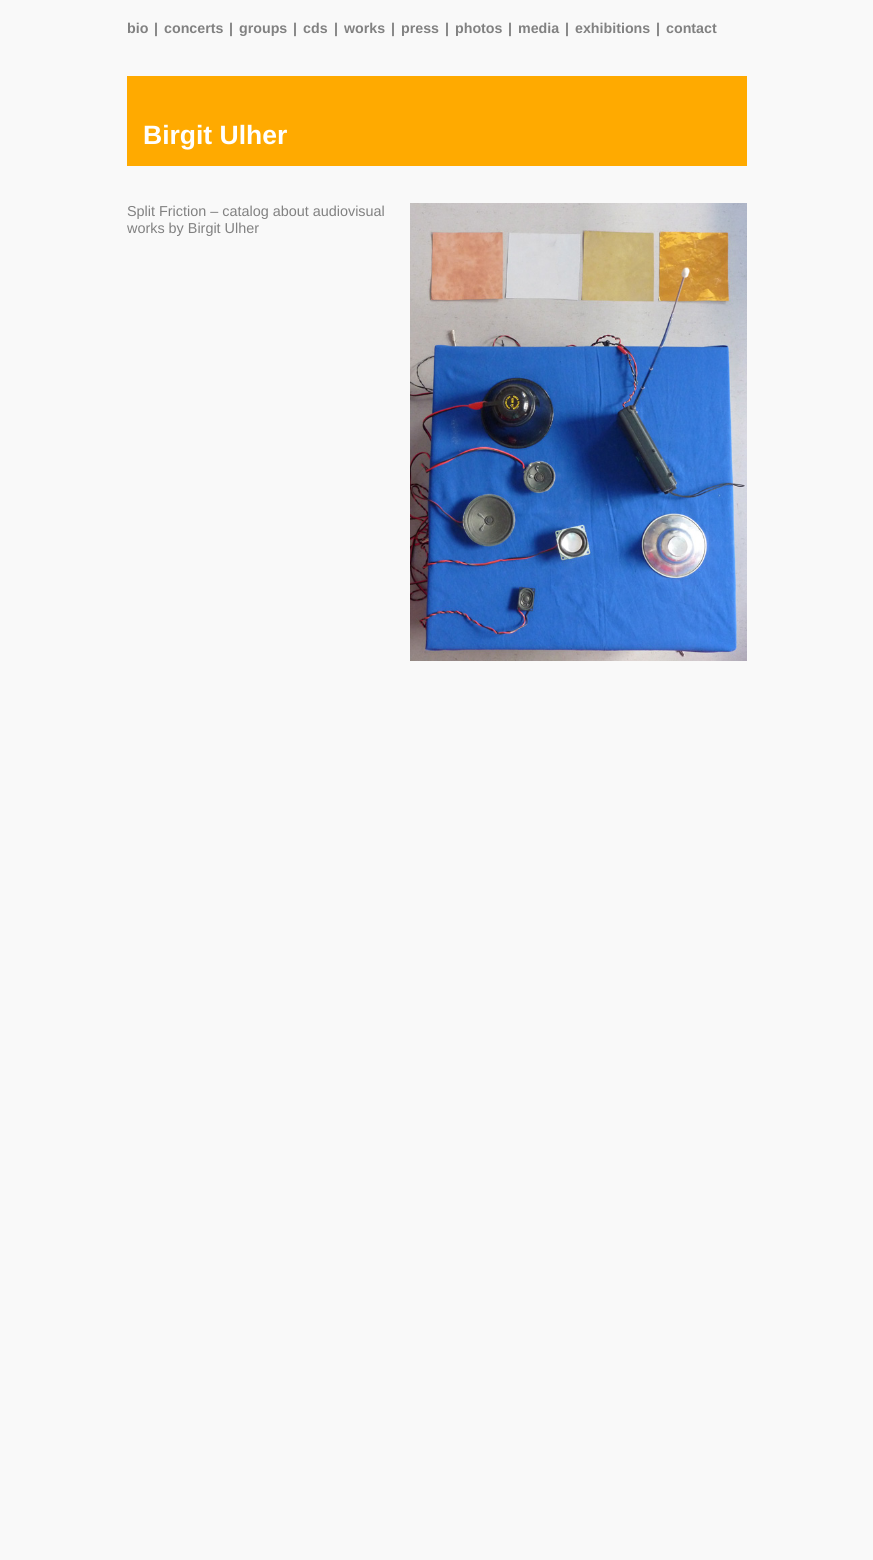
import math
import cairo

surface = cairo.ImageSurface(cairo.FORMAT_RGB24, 873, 1560)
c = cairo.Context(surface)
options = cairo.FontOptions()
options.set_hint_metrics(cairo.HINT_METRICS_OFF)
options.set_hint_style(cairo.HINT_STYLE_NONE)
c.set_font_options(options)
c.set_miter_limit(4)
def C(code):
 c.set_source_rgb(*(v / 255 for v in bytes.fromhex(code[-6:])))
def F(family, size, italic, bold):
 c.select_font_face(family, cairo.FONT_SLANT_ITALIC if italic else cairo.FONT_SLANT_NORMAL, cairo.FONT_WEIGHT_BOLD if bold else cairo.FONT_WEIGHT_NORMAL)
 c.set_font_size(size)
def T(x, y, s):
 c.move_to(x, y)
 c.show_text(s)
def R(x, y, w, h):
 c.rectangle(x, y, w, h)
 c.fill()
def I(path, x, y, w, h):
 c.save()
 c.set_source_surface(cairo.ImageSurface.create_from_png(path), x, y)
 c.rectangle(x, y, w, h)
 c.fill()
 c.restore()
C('f9f9f9')
c.paint()
F('Liberation Sans',14.25,0,1)
C('818181')
T(127,33,'bio')
T(154,33,'|')
T(164,33,'concerts')
T(229,33,'|')
T(239,33,'groups')
T(293,33,'|')
T(303,33,'cds')
T(334,33,'|')
T(344,33,'works')
T(391,33,'|')
T(401,33,'press')
T(445,33,'|')
T(455,33,'photos')
T(508,33,'|')
T(518,33,'media')
T(565,33,'|')
T(575,33,'exhibitions')
T(656,33,'|')
T(666,33,'contact')
C('ffaa00')
R(127,76,620,90)
F('Liberation Sans',26.5,0,1)
C('ffffff')
T(143,144,'Birgit Ulher')
F('Liberation Sans',14.4,0,0)
C('818181')
T(127,216,'Split Friction – catalog about audiovisual')
T(127,233,'works by Birgit Ulher')
I('1.png',410,203,337,458)
surface.write_to_png('o.png')
